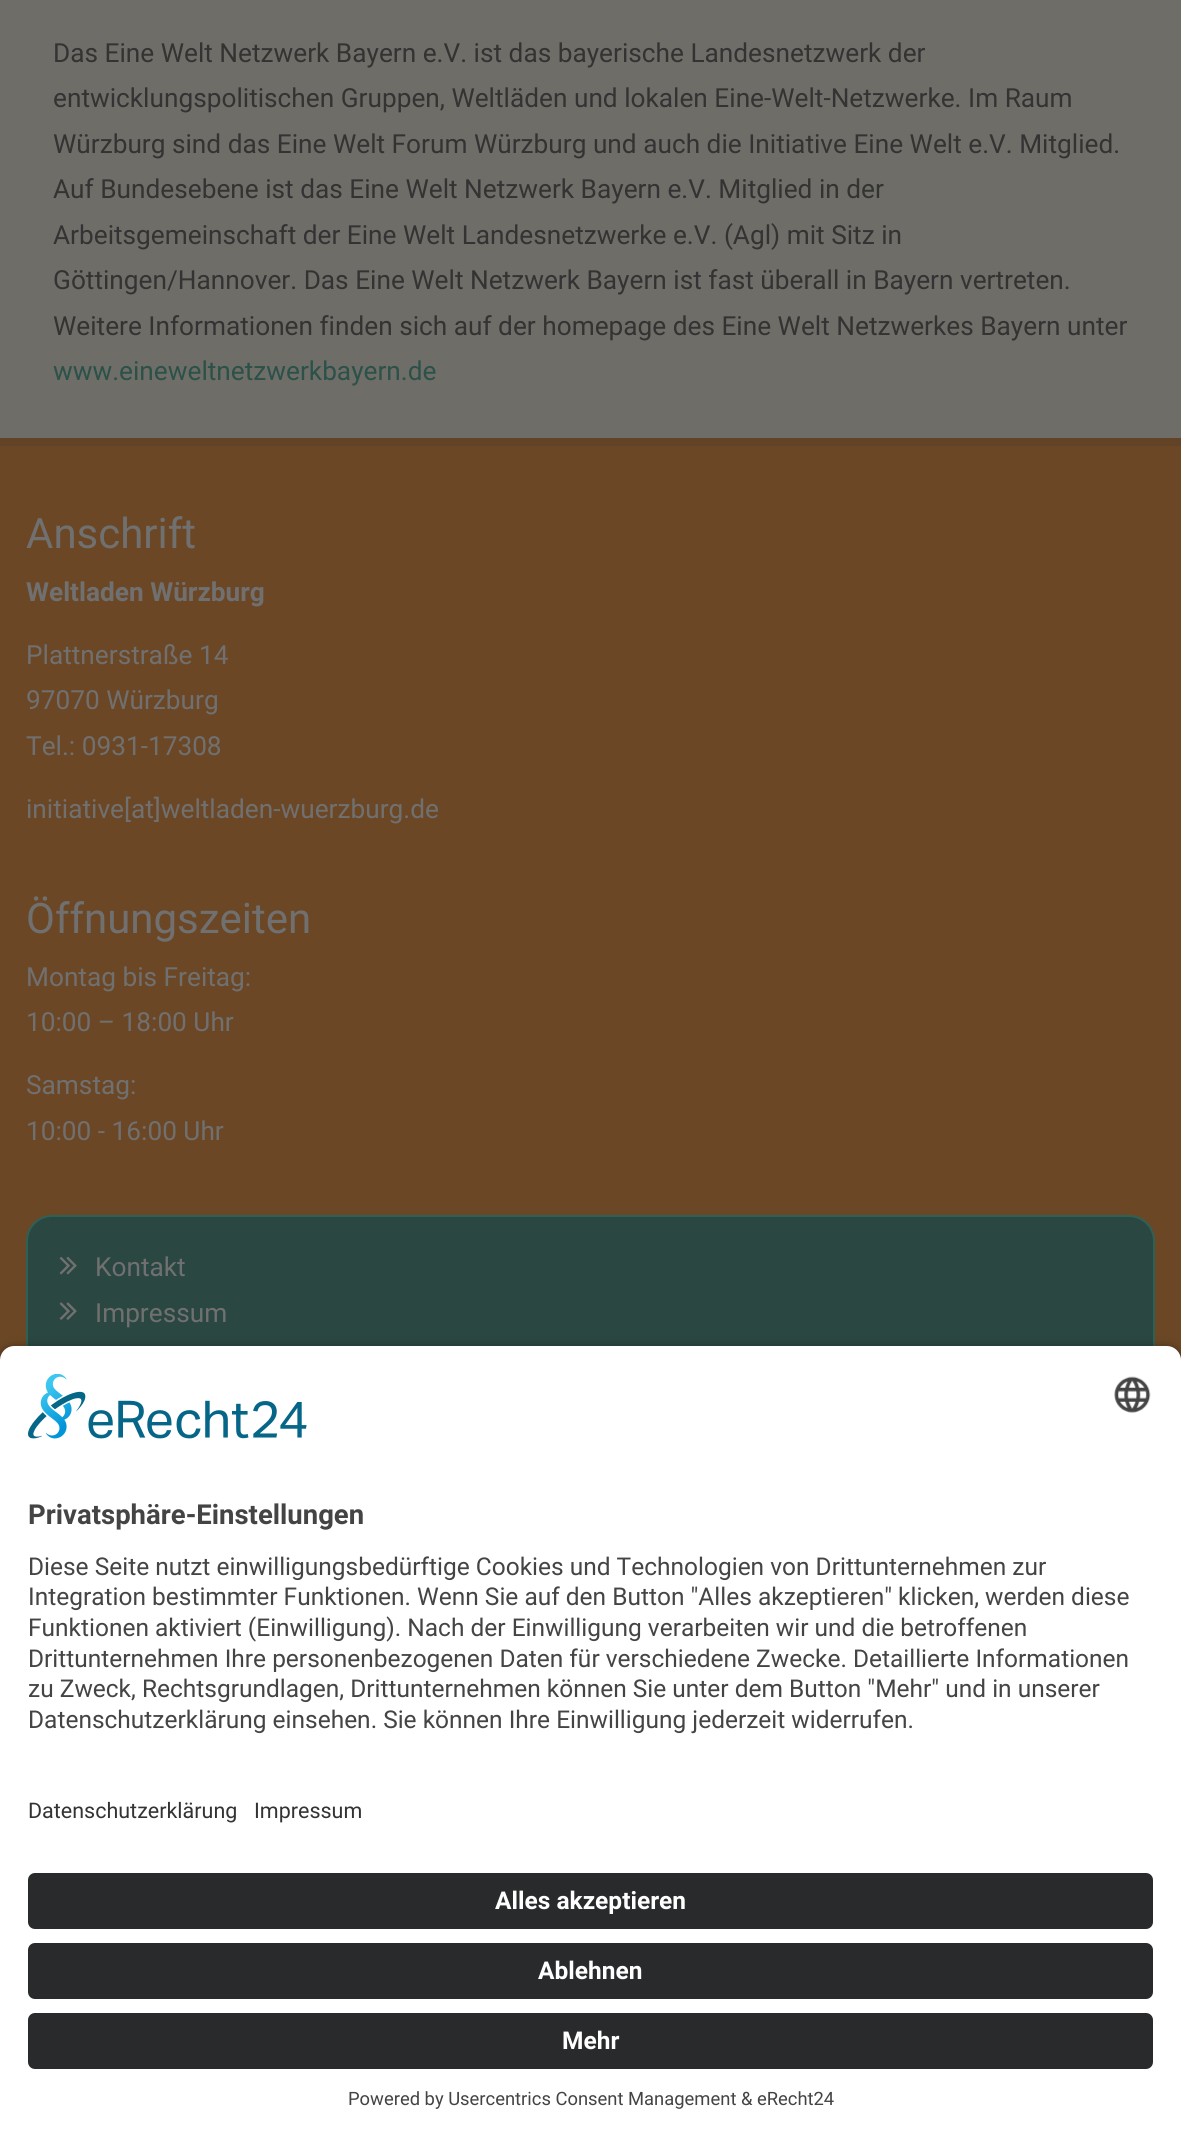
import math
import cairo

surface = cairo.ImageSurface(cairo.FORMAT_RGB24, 1181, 2137)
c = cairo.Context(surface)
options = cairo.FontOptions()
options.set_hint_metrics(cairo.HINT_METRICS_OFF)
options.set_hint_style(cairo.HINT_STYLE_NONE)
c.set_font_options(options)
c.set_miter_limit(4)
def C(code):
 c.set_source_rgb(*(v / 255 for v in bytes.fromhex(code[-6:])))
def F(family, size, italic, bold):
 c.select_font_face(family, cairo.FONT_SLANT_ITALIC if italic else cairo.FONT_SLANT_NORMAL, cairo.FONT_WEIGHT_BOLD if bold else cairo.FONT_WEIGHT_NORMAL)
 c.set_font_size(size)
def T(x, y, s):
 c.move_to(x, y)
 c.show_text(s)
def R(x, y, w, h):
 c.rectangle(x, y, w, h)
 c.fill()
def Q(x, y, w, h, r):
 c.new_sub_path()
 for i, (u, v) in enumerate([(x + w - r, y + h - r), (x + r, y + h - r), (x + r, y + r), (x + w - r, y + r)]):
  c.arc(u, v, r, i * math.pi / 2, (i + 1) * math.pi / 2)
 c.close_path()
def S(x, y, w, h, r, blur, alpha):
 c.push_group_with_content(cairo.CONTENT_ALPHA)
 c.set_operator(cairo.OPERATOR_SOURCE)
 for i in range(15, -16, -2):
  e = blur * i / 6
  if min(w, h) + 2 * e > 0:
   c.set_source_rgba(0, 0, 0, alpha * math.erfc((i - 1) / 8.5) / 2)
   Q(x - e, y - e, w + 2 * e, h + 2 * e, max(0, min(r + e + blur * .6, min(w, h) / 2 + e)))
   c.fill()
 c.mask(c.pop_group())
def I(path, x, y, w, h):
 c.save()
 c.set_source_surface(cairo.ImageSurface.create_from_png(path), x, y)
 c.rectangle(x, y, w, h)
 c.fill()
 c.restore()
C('6f6d68')
c.paint()
F('Roboto',26.25,0,0)
C('333333')
T(53,62,'Das Eine Welt Netzwerk Bayern e.V. ist das bayerische Landesnetzwerk der')
T(53,107,'entwicklungspolitischen Gruppen, Weltläden und lokalen Eine-Welt-Netzwerke. Im Raum')
T(53,153,'Würzburg sind das Eine Welt Forum Würzburg und auch die Initiative Eine Welt e.V. Mitglied.')
T(53,198,'Auf Bundesebene ist das Eine Welt Netzwerk Bayern e.V. Mitglied in der')
T(53,244,'Arbeitsgemeinschaft der Eine Welt Landesnetzwerke e.V. (Agl) mit Sitz in')
T(53,289,'Göttingen/Hannover. Das Eine Welt Netzwerk Bayern ist fast überall in Bayern vertreten.')
T(53,335,'Weitere Informationen finden sich auf der homepage des Eine Welt Netzwerkes Bayern unter')
C('2b5149')
T(53,380,'www.eineweltnetzwerkbayern.de')
C('6b4725')
R(0,446,1181,914)
C('634325')
R(0,438,1181,8)
F('Roboto',42,0,0)
C('707070')
T(26,548,'Anschrift')
F('Roboto',26.25,0,1)
T(26,601,'Weltladen Würzburg')
F('Roboto',26.25,0,0)
T(26,664,'Plattnerstraße 14')
T(26,709,'97070 Würzburg')
T(26,755,'Tel.: 0931-17308')
T(26,818,'initiative[at]weltladen-wuerzburg.de')
F('Roboto',42,0,0)
T(26,933,'Öffnungszeiten')
F('Roboto',26.25,0,0)
T(26,986,'Montag bis Freitag:')
T(26,1031,'10:00 – 18:00 Uhr')
T(26,1094,'Samstag:')
T(26,1140,'10:00 - 16:00 Uhr')
C('2a4741')
Q(27,1216,1127,246,25)
c.fill_preserve()
C('2e6156')
c.stroke()
I('1.png',59,1256,18,19)
C('707070')
T(95,1276,'Kontakt')
I('2.png',59,1302,18,18)
T(95,1322,'Impressum')
C('000000')
S(0,1351,1181,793,14,6,.8)
C('ffffff')
c.new_path()
c.move_to(14,1346)
c.line_to(1167,1346)
c.curve_to(1174.5,1346,1181,1352.5,1181,1360)
c.line_to(1181,1771)
c.line_to(0,1771)
c.line_to(0,1360)
c.curve_to(0,1352.5,6.5,1346,14,1346)
c.close_path()
c.fill()
I('3.png',28,1374,279,65)
I('4.png',1114,1376,37,37)
F('Roboto',27.5,0,1)
C('444444')
T(28,1524,'Privatsphäre-Einstellungen')
F('Roboto',24.5,0,0)
T(28,1575,'Diese Seite nutzt einwilligungsbedürftige Cookies und Technologien von Drittunternehmen zur')
T(28,1605,'Integration bestimmter Funktionen. Wenn Sie auf den Button "Alles akzeptieren" klicken, werden diese')
T(28,1636,'Funktionen aktiviert (Einwilligung). Nach der Einwilligung verarbeiten wir und die betroffenen')
T(28,1667,'Drittunternehmen Ihre personenbezogenen Daten für verschiedene Zwecke. Detaillierte Informationen')
T(28,1697,'zu Zweck, Rechtsgrundlagen, Drittunternehmen können Sie unter dem Button "Mehr" und in unserer')
T(28,1728,'Datenschutzerklärung einsehen. Sie können Ihre Einwilligung jederzeit widerrufen.')
C('ffffff')
R(0,1771,1181,366)
F('Roboto',21.5,0,0)
C('333333')
T(28,1818,'Datenschutzerklärung')
T(254,1818,'Impressum')
C('292a2b')
Q(28,1873,1125,56,7)
c.fill()
F('Roboto',24.5,0,1)
C('ffffff')
T(495,1909,'Alles akzeptieren')
C('292a2b')
Q(28,1943,1125,56,7)
c.fill()
C('ffffff')
T(538,1979,'Ablehnen')
C('292a2b')
Q(28,2013,1125,56,7)
c.fill()
C('ffffff')
T(562,2049,'Mehr')
F('Roboto',18.4,0,0)
C('444444')
T(348,2105,'Powered by Usercentrics Consent Management & eRecht24')
surface.write_to_png('o.png')
